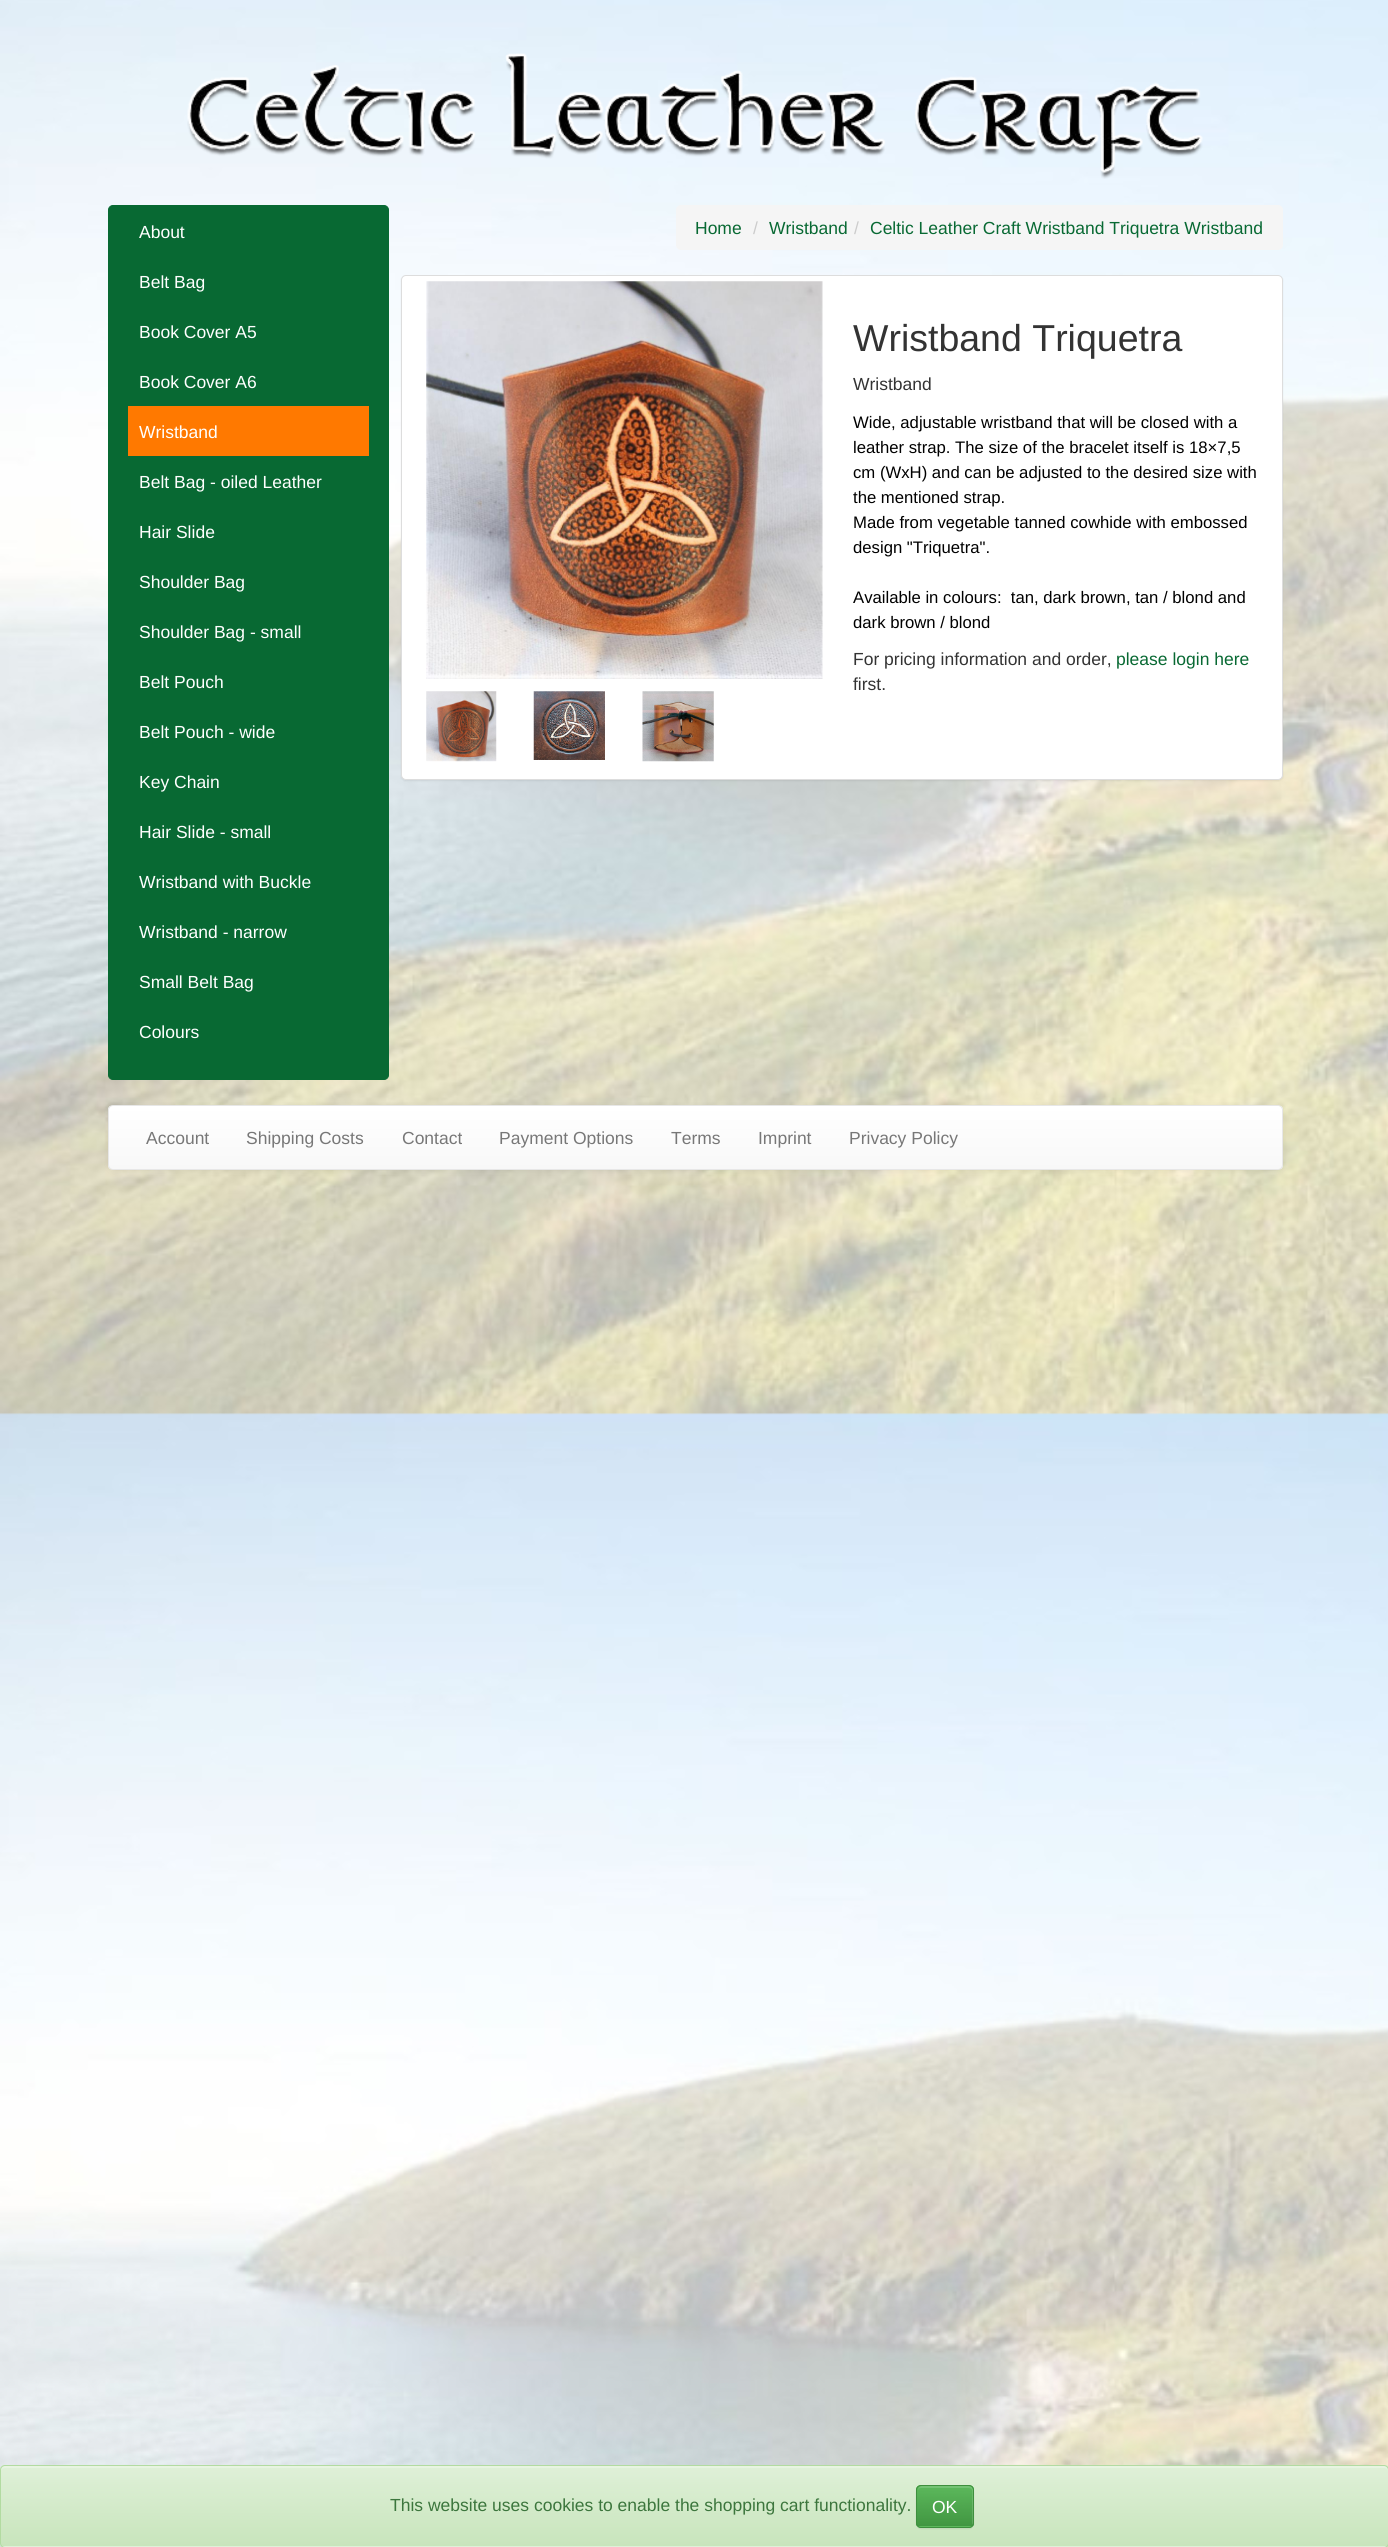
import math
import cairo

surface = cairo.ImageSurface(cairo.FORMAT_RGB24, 1388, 2547)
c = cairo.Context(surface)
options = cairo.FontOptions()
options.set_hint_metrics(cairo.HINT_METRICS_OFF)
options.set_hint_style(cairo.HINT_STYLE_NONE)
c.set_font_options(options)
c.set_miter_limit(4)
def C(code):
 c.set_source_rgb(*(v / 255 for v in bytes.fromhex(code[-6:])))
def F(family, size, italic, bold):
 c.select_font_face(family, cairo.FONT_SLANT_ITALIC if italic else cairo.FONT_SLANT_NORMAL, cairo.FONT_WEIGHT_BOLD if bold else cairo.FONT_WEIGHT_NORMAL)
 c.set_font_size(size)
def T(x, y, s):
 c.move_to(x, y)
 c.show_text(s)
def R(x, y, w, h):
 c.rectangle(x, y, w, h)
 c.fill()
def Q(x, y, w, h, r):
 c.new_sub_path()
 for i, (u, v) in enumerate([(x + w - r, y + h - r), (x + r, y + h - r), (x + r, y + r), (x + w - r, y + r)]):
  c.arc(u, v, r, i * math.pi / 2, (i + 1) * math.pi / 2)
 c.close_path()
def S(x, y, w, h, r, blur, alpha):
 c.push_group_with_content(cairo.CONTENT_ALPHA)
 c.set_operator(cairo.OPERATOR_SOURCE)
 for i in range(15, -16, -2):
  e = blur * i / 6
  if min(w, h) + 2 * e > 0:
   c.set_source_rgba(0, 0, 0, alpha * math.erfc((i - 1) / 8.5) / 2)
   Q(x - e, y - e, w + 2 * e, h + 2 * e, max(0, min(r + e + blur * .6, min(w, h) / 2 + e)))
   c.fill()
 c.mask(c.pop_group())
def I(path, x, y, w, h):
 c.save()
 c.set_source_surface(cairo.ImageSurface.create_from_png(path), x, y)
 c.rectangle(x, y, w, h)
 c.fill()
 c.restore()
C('ffffff')
c.paint()
I('1.png',0,0,1388,2547)
I('2.png',187,53,1016,126)
C('086933')
Q(108.5,205.5,280,874,4.5)
c.fill_preserve()
c.set_line_width(1)
c.stroke()
F('Liberation Sans',17.5,0,0)
C('ffffff')
T(139,238,'About')
T(139,288,'Belt Bag')
T(139,338,'Book Cover A5')
T(139,388,'Book Cover A6')
C('ff7900')
R(128,406,241,50)
C('ffffff')
T(139,438,'Wristband')
T(139,488,'Belt Bag - oiled Leather')
T(139,538,'Hair Slide')
T(139,588,'Shoulder Bag')
T(139,638,'Shoulder Bag - small')
T(139,688,'Belt Pouch')
T(139,738,'Belt Pouch - wide')
T(139,788,'Key Chain')
T(139,838,'Hair Slide - small')
T(139,888,'Wristband with Buckle')
T(139,938,'Wristband - narrow')
T(139,988,'Small Belt Bag')
T(139,1038,'Colours')
C('f5f5f5')
Q(676,205,607,45,5)
c.fill()
C('086933')
T(695,234,'Home')
C('cccccc')
T(753,234,'/')
C('086933')
T(769,234,'Wristband')
C('cccccc')
T(854,234,'/')
C('086933')
T(870,234,'Celtic Leather Craft Wristband Triquetra Wristband')
C('000000')
S(401,276,882,505,5,1,.07)
C('ffffff')
Q(401.5,275.5,881,504,4.5)
c.fill_preserve()
C('dddddd')
c.stroke()
I('3.png',426,281,397,398)
I('4.png',426,691,71,71)
I('5.png',533,691,72,69)
I('6.png',642,691,72,71)
F('Liberation Sans',37.5,0,0)
C('333333')
T(853,351,'Wristband Triquetra')
F('Liberation Sans',17.5,0,0)
T(853,390,'Wristband')
F('Liberation Sans',16.7,0,0)
C('000000')
T(853,428,'Wide, adjustable wristband that will be closed with a')
T(853,453,'leather strap. The size of the bracelet itself is 18×7,5')
T(853,478,'cm (WxH) and can be adjusted to the desired size with')
T(853,503,'the mentioned strap.')
T(853,528,'Made from vegetable tanned cowhide with embossed')
T(853,553,'design "Triquetra".')
T(853,603,'Available in colours:  tan, dark brown, tan / blond and')
T(853,628,'dark brown / blond')
F('Liberation Sans',17.5,0,0)
C('333333')
T(853,665,'For pricing information and order,')
C('086933')
T(1116,665,'please login here')
C('333333')
T(853,690,'first.')
C('000000')
S(108,1106,1175,65,5,3,.07)
c.save()
Q(108,1105,1175,65,5)
c.clip()
gradient = cairo.LinearGradient(695,1106,695,1169)
gradient.add_color_stop_rgba(0,1,1,1,1)
gradient.add_color_stop_rgba(1,0.973,0.973,0.973,1)
c.set_source(gradient)
R(108,1106,1175,63)
c.restore()
Q(108.5,1105.5,1174,64,4.5)
C('e7e7e7')
c.stroke()
C('777777')
T(146,1144,'Account')
T(246,1144,'Shipping Costs')
T(402,1144,'Contact')
T(499,1144,'Payment Options')
T(671,1144,'Terms')
T(758,1144,'Imprint')
T(849,1144,'Privacy Policy')
C('000000')
S(0,2466,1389,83,5,1,.05)
C('dff0d8')
Q(0,2465,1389,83,5)
c.fill()
c.save()
Q(0,2465,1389,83,5)
c.clip()
gradient = cairo.LinearGradient(694,2466,694,2546)
gradient.add_color_stop_rgba(0,0.875,0.941,0.847,1)
gradient.add_color_stop_rgba(1,0.784,0.898,0.737,1)
c.set_source(gradient)
R(0,2466,1388,80)
c.restore()
C('e7f4e1')
c.new_path()
c.move_to(5,2468)
c.line_to(1384,2468)
c.curve_to(1386,2468,1388,2469,1388,2471)
c.line_to(1388,2470)
c.curve_to(1388,2468,1386,2466,1384,2466)
c.line_to(5,2466)
c.curve_to(3,2466,1,2468,1,2470)
c.line_to(1,2471)
c.curve_to(1,2469,3,2468,5,2468)
c.close_path()
c.fill()
Q(.5,2465.5,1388,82,4.5)
C('b2dba1')
c.stroke()
C('3c763d')
T(390,2511,'This website uses cookies to enable the shopping cart functionality.')
C('000000')
S(916,2486,58,43,5,.5,.07)
C('5cb85c')
Q(916,2485,58,43,5)
c.fill()
c.save()
Q(916,2485,58,43,5)
c.clip()
gradient = cairo.LinearGradient(945,2486,945,2526)
gradient.add_color_stop_rgba(0,0.361,0.722,0.361,1)
gradient.add_color_stop_rgba(1,0.255,0.588,0.255,1)
c.set_source(gradient)
R(916,2486,58,40)
c.restore()
c.set_source_rgba(1,1,1,0.15)
c.new_path()
c.move_to(921,2488)
c.line_to(961,2488)
c.curve_to(975,2488,972,2487,972,2502)
c.line_to(972,2525)
c.curve_to(974,2523,973,2519,973,2517)
c.line_to(973,2506)
c.curve_to(973,2483,977,2486,953,2486)
c.line_to(930,2486)
c.curve_to(925,2486,918,2484,918,2491)
c.curve_to(918,2489,919,2488,921,2488)
c.close_path()
c.fill()
Q(916.5,2485.5,57,42,4.5)
C('3e8f3e')
c.stroke()
C('ffffff')
T(932,2513,'OK')
surface.write_to_png('o.png')
